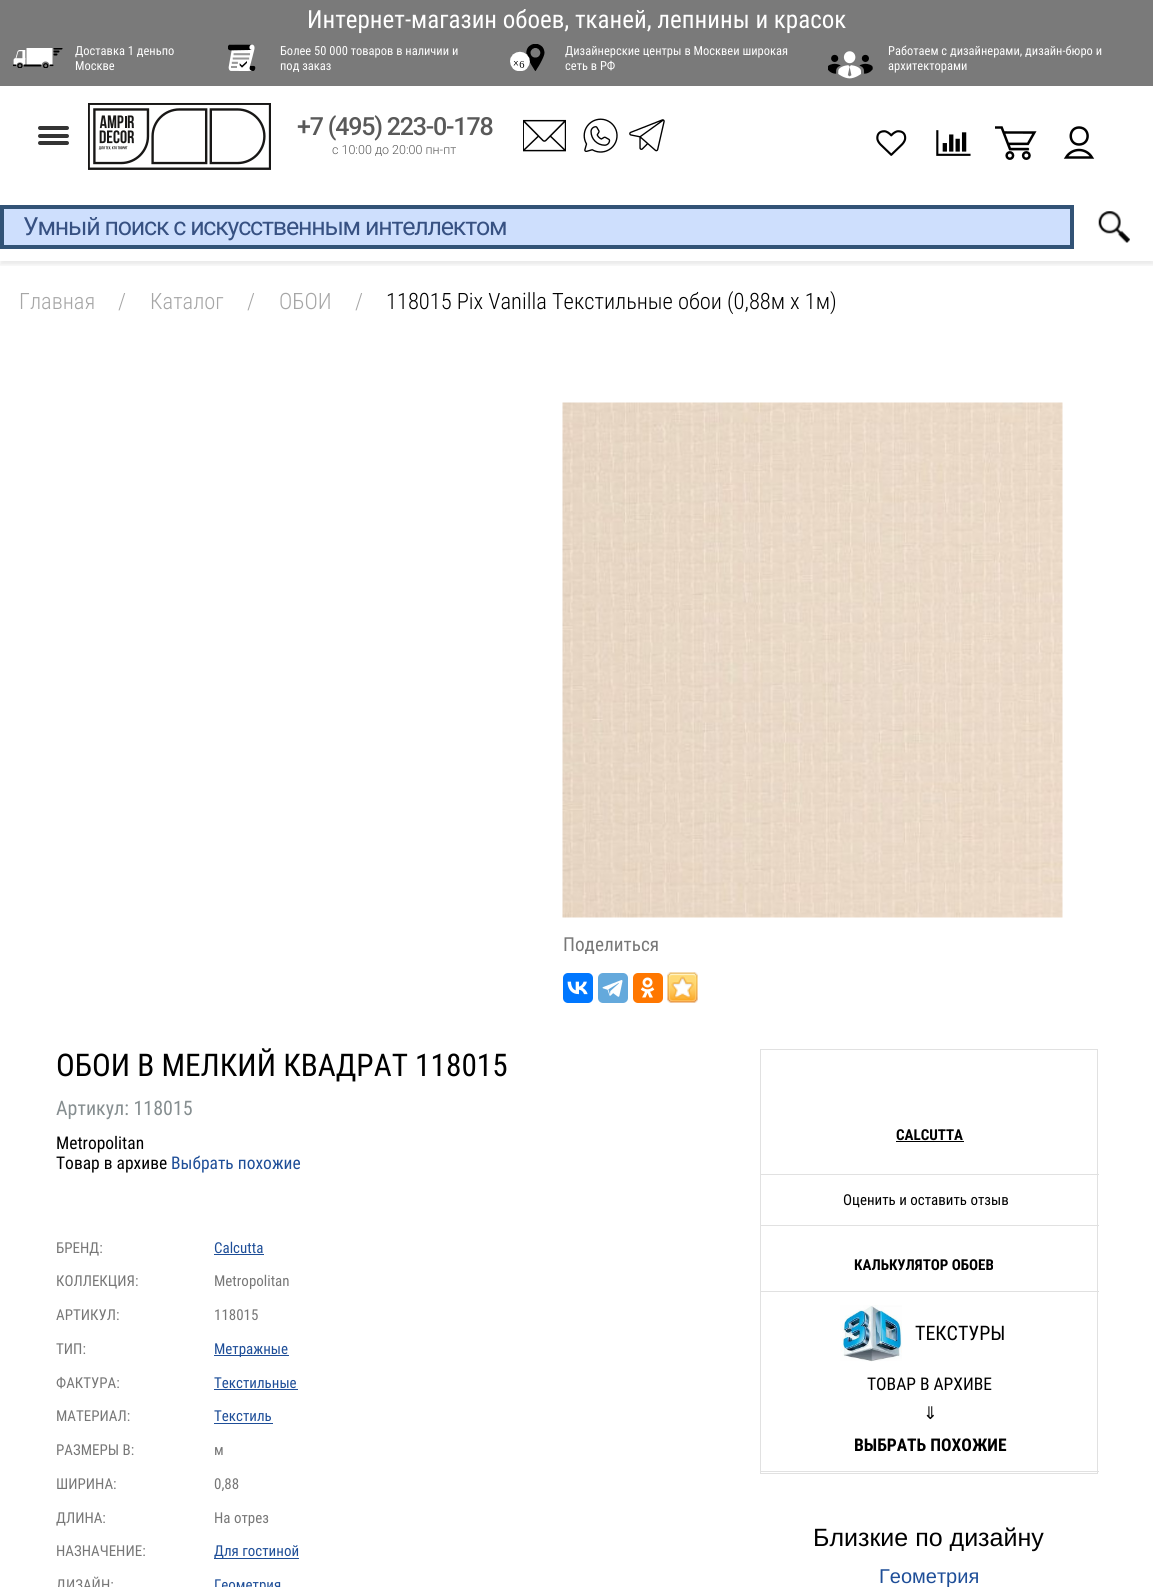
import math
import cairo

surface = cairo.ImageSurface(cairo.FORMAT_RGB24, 1153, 1587)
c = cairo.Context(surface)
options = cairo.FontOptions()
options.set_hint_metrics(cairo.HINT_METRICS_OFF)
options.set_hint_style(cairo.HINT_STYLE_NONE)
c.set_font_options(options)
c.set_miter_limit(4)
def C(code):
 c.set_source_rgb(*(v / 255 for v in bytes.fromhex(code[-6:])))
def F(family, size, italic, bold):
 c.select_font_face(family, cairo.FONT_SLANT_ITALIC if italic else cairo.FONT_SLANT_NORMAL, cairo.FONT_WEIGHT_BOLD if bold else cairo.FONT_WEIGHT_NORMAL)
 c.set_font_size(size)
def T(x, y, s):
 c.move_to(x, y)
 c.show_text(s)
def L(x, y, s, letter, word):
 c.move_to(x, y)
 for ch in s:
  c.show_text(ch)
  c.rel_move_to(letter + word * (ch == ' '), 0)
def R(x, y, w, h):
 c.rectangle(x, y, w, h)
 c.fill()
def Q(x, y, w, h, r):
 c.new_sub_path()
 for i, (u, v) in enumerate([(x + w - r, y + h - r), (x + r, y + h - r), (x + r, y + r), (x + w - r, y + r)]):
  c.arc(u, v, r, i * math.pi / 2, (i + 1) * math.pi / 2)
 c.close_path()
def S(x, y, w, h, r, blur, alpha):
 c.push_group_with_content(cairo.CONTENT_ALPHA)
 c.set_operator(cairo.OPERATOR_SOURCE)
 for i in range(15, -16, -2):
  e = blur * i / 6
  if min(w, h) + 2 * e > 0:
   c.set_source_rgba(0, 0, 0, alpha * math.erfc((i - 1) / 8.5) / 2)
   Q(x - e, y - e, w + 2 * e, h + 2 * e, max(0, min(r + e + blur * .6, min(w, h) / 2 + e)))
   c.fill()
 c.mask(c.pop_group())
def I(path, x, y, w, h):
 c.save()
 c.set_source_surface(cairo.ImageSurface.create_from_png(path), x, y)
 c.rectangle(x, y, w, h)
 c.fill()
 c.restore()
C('ffffff')
c.paint()
C('7a7a7a')
R(0,0,1153,86)
F('Roboto Condensed',25,0,0)
C('ffffff')
T(307,28,'Интернет-магазин обоев, тканей, лепнины и красок')
I('1.png',13,48,50,20)
F('Roboto Condensed',12.5,0,0)
T(75,55,'Доставка 1 деньпо')
T(75,70,'Москве')
I('2.png',228,44,28,27)
T(280,55,'Более 50 000 товаров в наличии и')
T(280,70,'под заказ')
I('3.png',510,44,35,27)
T(565,55,'Дизайнерские центры в Москвеи широкая')
T(565,70,'сеть в РФ')
I('4.png',828,51,45,28)
T(888,55,'Работаем с дизайнерами, дизайн-бюро и')
T(888,70,'архитекторами')
C('343434')
Q(38,126,31,4,2)
c.fill()
Q(38,134,31,4,2)
c.fill()
Q(38,141,31,4,2)
c.fill()
I('5.png',88,103,183,67)
F('Roboto Medium',25,0,0)
C('595959')
L(297,135,'+7 (495) 223-0-178',-1.2,0)
F('Roboto Light',12.5,0,0)
T(332,154,'с 10:00 до 20:00 пн-пт')
I('6.png',523,119,43,33)
I('7.png',583,118,35,35)
I('8.png',629,119,36,33)
I('9.png',876,130,31,26)
I('10.png',936,130,35,26)
I('11.png',995,126,42,34)
c.new_path()
c.move_to(1066,157.5)
c.line_to(1092,157.5)
c.curve_to(1086,147.5,1072,147.5,1066,157.5)
c.close_path()
c.move_to(1079,144.5)
c.curve_to(1090.5,144.5,1090.5,127.5,1079,127.5)
c.curve_to(1068,127.5,1068,144.5,1079,144.5)
c.close_path()
C('000000')
c.set_line_width(2.5)
c.stroke()
c.save()
c.rectangle(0,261,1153,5)
c.clip()
C('000000')
S(0,209,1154,56,0,2,.08)
c.restore()
c.rectangle(.5,205.5,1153,43)
C('325376')
c.set_line_width(1)
c.stroke()
C('cedffd')
c.rectangle(2.5,207.5,1069,39)
c.fill_preserve()
C('325376')
c.set_line_width(3)
c.stroke()
F('Roboto',25,0,0)
C('375182')
L(23,235,'Умный поиск с искусственным интеллектом',-1.2,0)
C('ffffff')
R(1074,205,79,44)
C('325376')
R(1073,205,1,44)
I('12.png',1098,211,32,32)
F('Roboto Condensed Light',22.5,0,0)
C('a6a6a6')
T(19,309,'Главная')
T(118,309,'/')
T(150,309,'Каталог')
T(247,309,'/')
T(279,309,'ОБОИ')
T(355,309,'/')
C('000000')
T(386,309,'118015 Pix Vanilla Текстильные обои (0,88м х 1м)')
I('13.png',562,402,501,516)
F('Roboto Condensed',19.25,0,0)
C('777777')
T(563,951,'Поделиться')
C('0077ff')
Q(563,973,30,30,5)
c.fill()
I('14.png',567,981,21,14)
C('64a9dc')
Q(598,973,30,30,5)
c.fill()
I('15.png',602,980,21,17)
C('ff7700')
Q(633,973,30,30,5)
c.fill()
I('16.png',640,977,15,21)
I('17.png',667,972,31,31)
F('Roboto Condensed',31.25,0,0)
C('000000')
T(56,1076,'ОБОИ В МЕЛКИЙ КВАДРАТ 118015')
F('Roboto Condensed',20,0,0)
C('868e90')
T(56,1115,'Артикул: 118015')
F('Roboto Condensed',17.5,0,0)
C('000000')
T(56,1149,'Metropolitan')
T(56,1169,'Товар в архиве')
C('1e4e98')
T(171,1169,'Выбрать похожие')
F('Roboto Condensed',15,0,0)
C('777777')
T(56,1253,'БРЕНД:')
C('1e4e98')
T(214,1253,'Calcutta')
R(214,1254,50,1)
C('777777')
T(56,1286,'КОЛЛЕКЦИЯ:')
T(214,1286,'Metropolitan')
T(56,1320,'АРТИКУЛ:')
T(214,1320,'118015')
T(56,1354,'ТИП:')
C('1e4e98')
R(214,1355,75,1)
T(214,1354,'Метражные')
C('777777')
T(56,1388,'ФАКТУРА:')
C('1e4e98')
T(214,1388,'Текстильные')
R(214,1389,84,1)
C('777777')
T(56,1421,'МАТЕРИАЛ:')
C('1e4e98')
T(214,1421,'Текстиль')
R(214,1423,59,1)
C('777777')
T(56,1455,'РАЗМЕРЫ В:')
T(214,1455,'м')
T(56,1489,'ШИРИНА:')
T(214,1489,'0,88')
T(56,1523,'ДЛИНА:')
T(214,1523,'На отрез')
T(56,1556,'НАЗНАЧЕНИЕ:')
C('1e4e98')
R(214,1558,85,1)
T(214,1556,'Для гостиной')
C('777777')
T(56,1590,'ДИЗАЙН:')
C('1e4e98')
T(214,1590,'Геометрия')
c.rectangle(760.5,1049.5,337,424)
C('e1e1e1')
c.set_line_width(1)
c.stroke()
R(761,1174,338,1)
F('Roboto Condensed',15,0,1)
C('000000')
T(896,1140,'CALCUTTA')
R(896,1141,68,1)
F('Roboto Condensed',15,0,0)
T(843,1205,'Оценить и оставить отзыв')
C('e1e1e1')
R(761,1225,338,1)
R(761,1291,338,1)
F('Roboto Condensed',15,0,1)
C('000000')
T(854,1270,'КАЛЬКУЛЯТОР ОБОЕВ')
I('18.png',840,1305,62,57)
F('Roboto Condensed',20,0,0)
T(915,1340,'ТЕКСТУРЫ')
C('e1e1e1')
R(761,1471,338,1)
F('Roboto Condensed',17.5,0,0)
C('000000')
T(867,1390,'ТОВАР В АРХИВЕ')
F('DejaVu Sans',17.5,0,0)
T(923,1419,'⇓')
F('Roboto Condensed',17.5,0,1)
T(854,1451,'ВЫБРАТЬ ПОХОЖИЕ')
F('Liberation Sans',25,0,0)
T(813,1546,'Близкие по дизайну')
F('Liberation Sans',20,0,0)
C('1e4e98')
T(879,1583,'Геометрия')
surface.write_to_png('o.png')
